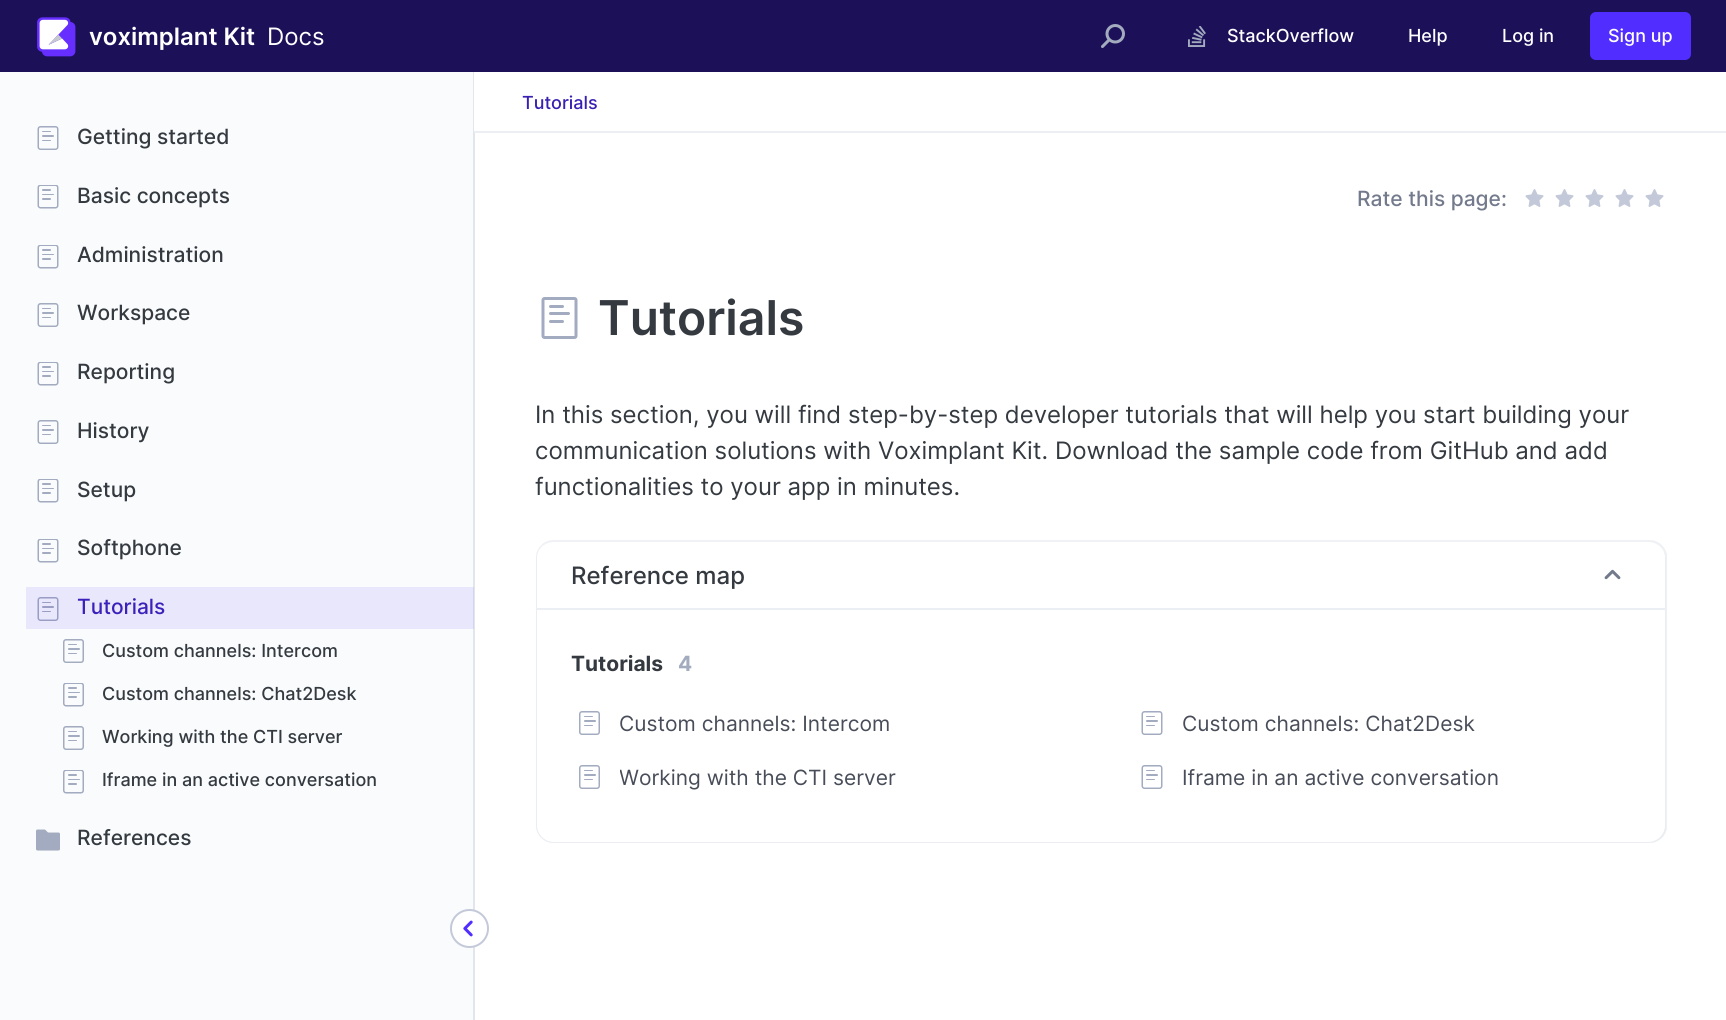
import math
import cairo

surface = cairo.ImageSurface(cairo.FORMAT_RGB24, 1726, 1020)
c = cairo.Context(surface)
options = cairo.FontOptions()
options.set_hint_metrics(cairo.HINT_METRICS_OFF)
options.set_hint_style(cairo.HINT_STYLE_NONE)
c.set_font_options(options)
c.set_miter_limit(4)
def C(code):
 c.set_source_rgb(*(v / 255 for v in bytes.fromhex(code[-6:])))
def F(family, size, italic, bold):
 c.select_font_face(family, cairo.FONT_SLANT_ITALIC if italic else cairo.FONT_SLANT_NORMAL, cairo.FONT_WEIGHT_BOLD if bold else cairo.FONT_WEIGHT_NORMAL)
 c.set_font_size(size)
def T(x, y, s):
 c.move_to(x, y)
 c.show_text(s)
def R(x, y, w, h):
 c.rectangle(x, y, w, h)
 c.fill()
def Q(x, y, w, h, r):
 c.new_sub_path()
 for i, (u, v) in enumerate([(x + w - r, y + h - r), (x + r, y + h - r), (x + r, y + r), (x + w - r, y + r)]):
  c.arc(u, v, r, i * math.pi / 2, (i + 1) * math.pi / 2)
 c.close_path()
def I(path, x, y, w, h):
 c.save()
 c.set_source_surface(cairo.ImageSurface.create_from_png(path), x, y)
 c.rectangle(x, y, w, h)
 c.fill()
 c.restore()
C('ffffff')
c.paint()
C('1c1059')
R(0,0,1726,72)
I('1.png',37,17,39,40)
F('Inter SemiBold',24,0,0)
C('ffffff')
T(89,45,'voximplant Kit')
F('Inter',24,0,0)
T(267,45,'Docs')
I('2.png',1101,24,24,24)
I('3.png',1188,26,18,21)
F('Inter Medium',18,0,0)
T(1227,42,'StackOverflow')
T(1408,42,'Help')
T(1502,42,'Log in')
C('512eff')
Q(1590,12,101,48,6)
c.fill()
C('ffffff')
T(1608,42,'Sign up')
C('fafbfc')
R(0,72,473,948)
C('e9e7fc')
R(26,587,447,42)
C('e2e6ea')
R(473,72,2,948)
C('d4d4ec')
R(473,587,1,42)
I('4.png',37,126,22,24)
F('Inter Medium',21,0,0)
C('343a40')
T(77,144,'Getting started')
I('5.png',37,185,22,24)
T(77,203,'Basic concepts')
I('5.png',37,245,22,24)
T(77,262,'Administration')
I('4.png',37,303,22,24)
T(77,320,'Workspace')
I('5.png',37,362,22,24)
T(77,379,'Reporting')
I('4.png',37,420,22,24)
T(77,438,'History')
I('5.png',37,479,22,24)
T(77,497,'Setup')
I('5.png',37,539,22,24)
T(77,555,'Softphone')
I('6.png',37,597,22,24)
C('3b21ba')
T(77,614,'Tutorials')
I('7.png',63,639,21,24)
F('Inter Medium',18,0,0)
C('343a40')
T(102,657,'Custom channels: Intercom')
I('8.png',63,683,21,24)
T(102,700,'Custom channels: Chat2Desk')
I('7.png',63,726,21,24)
T(102,743,'Working with the CTI server')
I('8.png',63,770,21,24)
T(102,786,'Iframe in an active conversation')
I('9.png',36,829,24,22)
F('Inter Medium',21,0,0)
T(77,845,'References')
C('ffffff')
c.new_path()
c.arc(469.5,928.5,18.5,0,2 * math.pi)
c.fill_preserve()
C('c3c9d9')
c.stroke()
I('10.png',463,920,10,17)
C('ffffff')
R(474,72,1,59)
C('ebeef2')
R(474,131,1252,2)
F('Inter Medium',18,0,0)
C('3920b2')
T(522,109,'Tutorials')
F('Inter Medium',21,0,0)
C('727a8c')
T(1357,206,'Rate this page:')
I('11.png',1525,189,19,18)
I('11.png',1555,189,19,18)
I('11.png',1585,189,19,18)
I('11.png',1615,189,19,18)
I('11.png',1645,189,19,18)
I('12.png',541,297,37,42)
F('Inter SemiBold',48,0,0)
C('343a40')
T(598,335,'Tutorials')
F('Inter',24,0,0)
T(535,423,'In this section, you will find step-by-step developer tutorials that will help you start building your')
T(535,459,'communication solutions with Voximplant Kit. Download the sample code from GitHub and add')
T(535,495,'functionalities to your app in minutes.')
C('ebedf2')
c.new_path()
c.move_to(554,540)
c.curve_to(544,540,536,548,536,558)
c.line_to(536,825)
c.curve_to(536,835,544,843,554,843)
c.line_to(555,843)
c.curve_to(545,843,537,835,537,825)
c.line_to(537,558)
c.curve_to(537,548,545,540,555,540)
c.close_path()
c.fill()
c.new_path()
c.move_to(1647,843)
c.line_to(1649,843)
c.curve_to(1659,843,1667,835,1667,825)
c.line_to(1667,558)
c.curve_to(1667,548,1659,540,1649,540)
c.line_to(1647,540)
c.curve_to(1657,540,1665,548,1665,558)
c.line_to(1665,825)
c.curve_to(1665,835,1657,843,1647,843)
c.close_path()
c.fill()
c.new_path()
c.move_to(536,824)
c.line_to(536,825)
c.curve_to(536,835,544,843,554,843)
c.line_to(1649,843)
c.curve_to(1659,843,1667,835,1667,825)
c.line_to(1667,558)
c.curve_to(1667,554,1666,551,1664,548)
c.curve_to(1665,550,1666,553,1666,556)
c.line_to(1666,824)
c.curve_to(1666,833,1658,842,1648,842)
c.line_to(554,842)
c.curve_to(544,842,536,833,536,824)
c.close_path()
c.fill()
C('f0f1f5')
c.new_path()
c.move_to(554,542)
c.line_to(1648,542)
c.curve_to(1658,542,1666,550,1666,560)
c.line_to(1666,826)
c.curve_to(1666,831,1664,835,1662,838)
c.curve_to(1665,835,1667,830,1667,825)
c.line_to(1667,558)
c.curve_to(1667,548,1659,540,1649,540)
c.line_to(554,540)
c.curve_to(544,540,536,548,536,558)
c.line_to(536,560)
c.curve_to(536,550,544,542,554,542)
c.close_path()
c.fill()
C('ebeef2')
R(536,608,1131,2)
F('Inter Medium',24,0,0)
C('343a40')
T(571,584,'Reference map')
I('13.png',1604,569,17,11)
F('Inter',21,0,1)
T(571,671,'Tutorials')
C('a3abbf')
T(678,671,'4')
I('14.png',579,711,21,24)
F('Inter',21,0,0)
C('484d59')
T(619,731,'Custom channels: Intercom')
I('15.png',1141,711,22,24)
T(1182,731,'Custom channels: Chat2Desk')
I('14.png',579,765,21,24)
c.save()
c.rectangle(620,759,445,36)
c.clip()
T(619,785,'Working with the CTI server')
c.restore()
I('15.png',1141,765,22,24)
T(1182,785,'Iframe in an active conversation')
surface.write_to_png('o.png')
